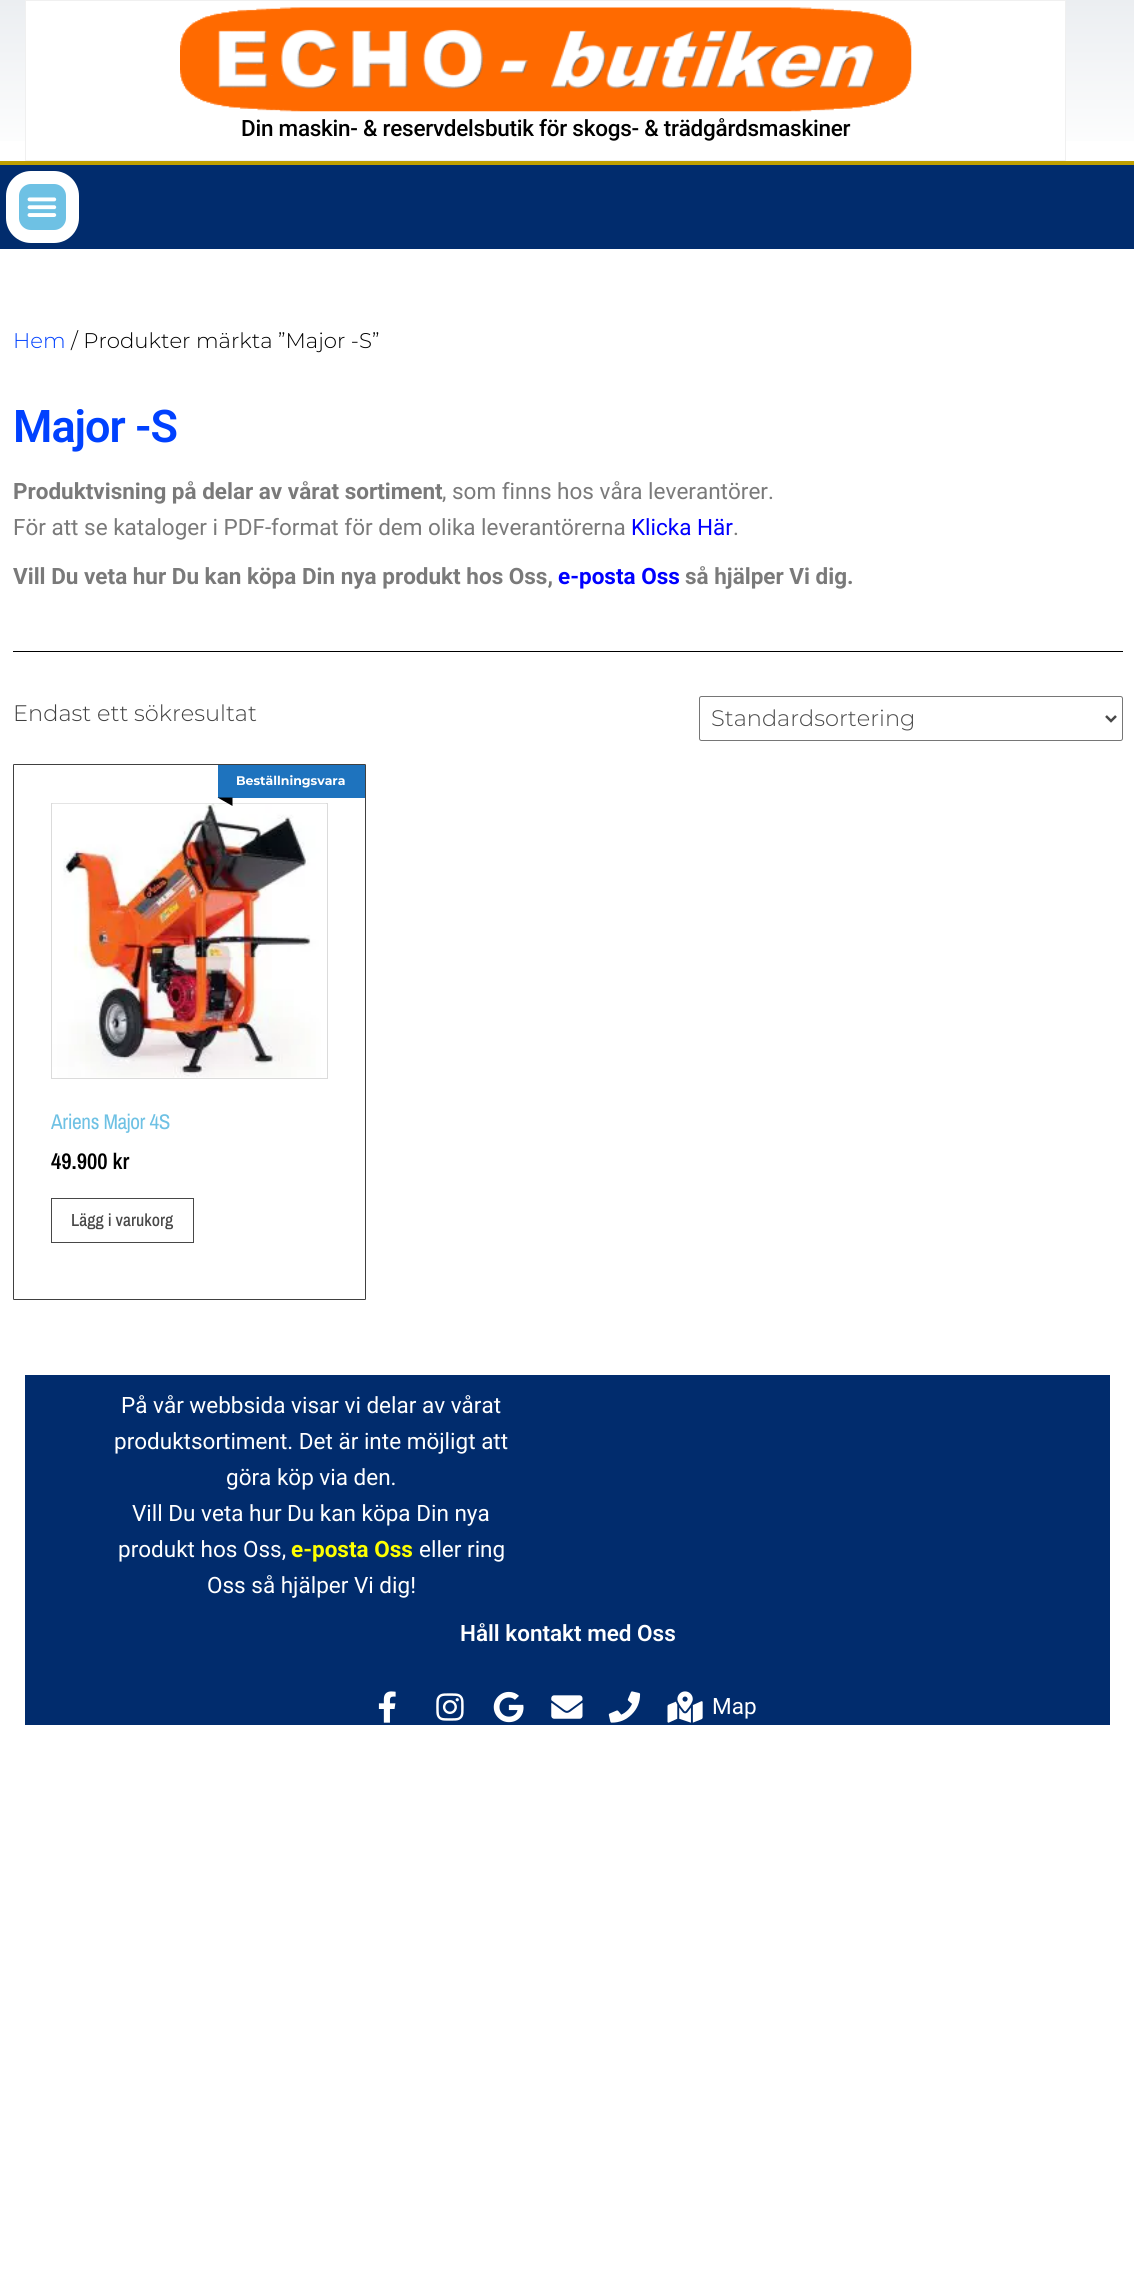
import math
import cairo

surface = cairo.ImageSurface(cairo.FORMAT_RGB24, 1134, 2279)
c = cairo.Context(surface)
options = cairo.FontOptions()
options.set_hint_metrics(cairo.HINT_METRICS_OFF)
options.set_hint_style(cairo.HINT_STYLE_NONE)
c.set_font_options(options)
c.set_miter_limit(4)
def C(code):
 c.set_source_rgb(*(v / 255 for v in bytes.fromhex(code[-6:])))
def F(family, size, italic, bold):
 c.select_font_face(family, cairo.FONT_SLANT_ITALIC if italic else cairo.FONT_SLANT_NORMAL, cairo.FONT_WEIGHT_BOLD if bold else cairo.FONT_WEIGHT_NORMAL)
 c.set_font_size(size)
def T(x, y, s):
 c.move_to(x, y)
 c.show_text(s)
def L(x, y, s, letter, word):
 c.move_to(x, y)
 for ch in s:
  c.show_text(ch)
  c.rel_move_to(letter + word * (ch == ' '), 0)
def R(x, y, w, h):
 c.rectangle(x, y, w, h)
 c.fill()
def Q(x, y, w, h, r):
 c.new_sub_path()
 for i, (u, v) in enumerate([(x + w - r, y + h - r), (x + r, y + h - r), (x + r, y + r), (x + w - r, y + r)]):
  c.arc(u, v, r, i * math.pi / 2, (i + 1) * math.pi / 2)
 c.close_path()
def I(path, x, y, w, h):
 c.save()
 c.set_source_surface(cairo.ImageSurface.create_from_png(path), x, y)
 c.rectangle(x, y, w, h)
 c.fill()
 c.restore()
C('ffffff')
c.paint()
gradient = cairo.LinearGradient(568,0,568,161)
gradient.add_color_stop_rgba(0,0.922,0.933,0.945,1)
gradient.add_color_stop_rgba(1,1,1,1,1)
c.set_source(gradient)
R(0,0,1134,141)
C('ffffff')
R(26,1,1039,140)
c.rectangle(25.5,.5,1040,160)
C('f0f0f0')
c.set_line_width(1)
c.stroke()
I('1.png',180,7,732,105)
F('Roboto Medium',22.5,0,0)
C('000000')
L(241,136,'Din maskin- & reservdelsbutik för skogs- & trädgårdsmaskiner',-.25,0)
C('012c6d')
R(0,165,1134,84)
C('bf9f00')
R(0,161,1134,4)
C('6ec1e4')
Q(12.5,177.5,60,59,18.5)
c.fill_preserve()
C('ffffff')
c.set_line_width(13)
c.stroke()
I('2.png',27,197,30,20)
F('Montserrat Light',21.25,0,0)
C('0041ff')
T(13,348,'Hem')
C('000000')
T(71,348,'/ Produkter märkta ”Major -S”')
F('Roboto SemiBold',45,0,0)
C('0041ff')
L(13,442,'Major -S',-1,0)
F('Roboto',22.5,0,1)
C('7a7a7a')
T(13,499,'Produktvisning på delar av vårat sortiment')
F('Roboto',22.5,0,0)
T(442,499,', som finns hos våra leverantörer.')
T(13,535,'För att se kataloger i PDF-format för dem olika leverantörerna')
C('0000ff')
T(631,535,'Klicka Här')
C('7a7a7a')
T(733,535,'.')
F('Roboto',22.5,0,1)
T(13,584,'Vill Du veta hur Du kan köpa Din nya produkt hos Oss,')
C('0000ff')
T(558,584,'e-posta Oss')
C('7a7a7a')
T(685,584,'så hjälper Vi dig.')
C('000000')
R(13,651,1110,1)
F('Montserrat Light',22.5,0,0)
C('404040')
T(13,721,'Endast ett sökresultat')
Q(699.5,696.5,423,44,2)
C('767676')
c.set_line_width(1)
c.stroke()
c.new_path()
c.move_to(1106,716)
c.line_to(1111,721)
c.line_to(1116,716)
C('484848')
c.set_line_width(2.5)
c.stroke()
T(711,726,'Standardsortering')
Q(13.5,764.5,352,535,.5)
C('404040')
c.set_line_width(1)
c.stroke()
C('1e73be')
R(218,765,147,33)
F('Montserrat',12.5,0,1)
C('ffffff')
T(236,785,'Beställningsvara')
c.rectangle(51.5,803.5,276,275)
C('dbdbdb')
c.stroke()
I('3.png',52,803,274,275)
C('000000')
c.new_path()
c.move_to(232.5,797.5)
c.line_to(232.5,806)
c.line_to(217.5,797.5)
c.close_path()
c.fill()
F('Archivo Narrow',21.25,0,0)
C('6ec1e4')
L(51,1129,'Ariens Major 4S',-.4,0)
F('Archivo Narrow SemiBold',22.5,0,0)
C('000000')
T(51,1169,'49.900 kr')
c.rectangle(51.5,1198.5,142,44)
C('484848')
c.stroke()
F('Archivo Narrow Medium',17.5,0,0)
T(71,1226,'Lägg i varukorg')
C('012c6d')
R(25,1375,1085,350)
F('Roboto',22.5,0,0)
C('ffffff')
T(121,1413,'På vår webbsida visar vi delar av vårat')
T(114,1449,'produktsortiment. Det är inte möjligt att')
T(226,1485,'göra köp via den.')
T(132,1521,'Vill Du veta hur Du kan köpa Din nya')
T(118,1557,'produkt hos Oss,')
F('Roboto',22.5,0,1)
C('feff00')
T(291,1557,'e-posta Oss')
F('Roboto',22.5,0,0)
C('ffffff')
T(419,1557,'eller ring')
T(207,1593,'Oss så hjälper Vi dig!')
F('Roboto SemiBold',22.5,0,0)
T(460,1641,'Håll kontakt med Oss')
I('4.png',378,1691,18,32)
I('5.png',436,1693,28,28)
I('6.png',493,1691,31,32)
I('7.png',551,1695,32,24)
I('8.png',608,1691,33,32)
I('9.png',667,1691,36,32)
F('Roboto',22.5,0,0)
T(712,1714,'Map')
surface.write_to_png('o.png')
